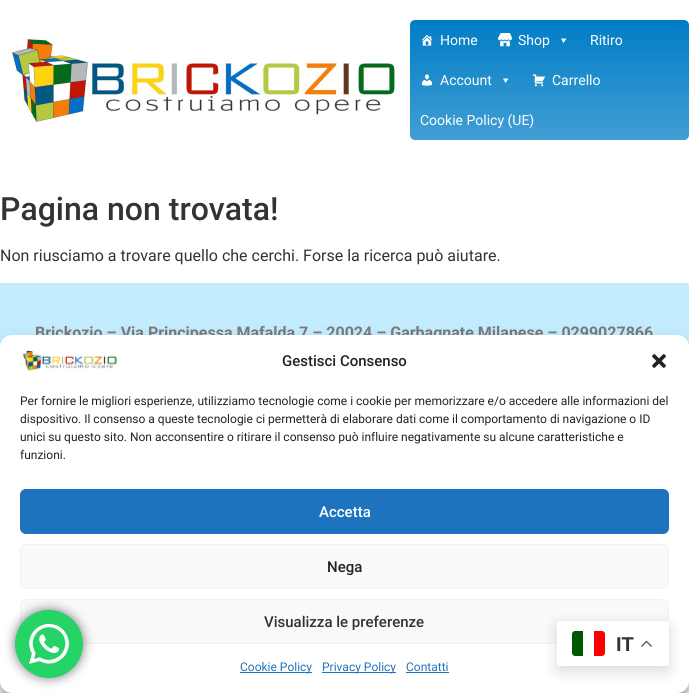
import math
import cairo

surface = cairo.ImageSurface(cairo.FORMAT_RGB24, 689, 693)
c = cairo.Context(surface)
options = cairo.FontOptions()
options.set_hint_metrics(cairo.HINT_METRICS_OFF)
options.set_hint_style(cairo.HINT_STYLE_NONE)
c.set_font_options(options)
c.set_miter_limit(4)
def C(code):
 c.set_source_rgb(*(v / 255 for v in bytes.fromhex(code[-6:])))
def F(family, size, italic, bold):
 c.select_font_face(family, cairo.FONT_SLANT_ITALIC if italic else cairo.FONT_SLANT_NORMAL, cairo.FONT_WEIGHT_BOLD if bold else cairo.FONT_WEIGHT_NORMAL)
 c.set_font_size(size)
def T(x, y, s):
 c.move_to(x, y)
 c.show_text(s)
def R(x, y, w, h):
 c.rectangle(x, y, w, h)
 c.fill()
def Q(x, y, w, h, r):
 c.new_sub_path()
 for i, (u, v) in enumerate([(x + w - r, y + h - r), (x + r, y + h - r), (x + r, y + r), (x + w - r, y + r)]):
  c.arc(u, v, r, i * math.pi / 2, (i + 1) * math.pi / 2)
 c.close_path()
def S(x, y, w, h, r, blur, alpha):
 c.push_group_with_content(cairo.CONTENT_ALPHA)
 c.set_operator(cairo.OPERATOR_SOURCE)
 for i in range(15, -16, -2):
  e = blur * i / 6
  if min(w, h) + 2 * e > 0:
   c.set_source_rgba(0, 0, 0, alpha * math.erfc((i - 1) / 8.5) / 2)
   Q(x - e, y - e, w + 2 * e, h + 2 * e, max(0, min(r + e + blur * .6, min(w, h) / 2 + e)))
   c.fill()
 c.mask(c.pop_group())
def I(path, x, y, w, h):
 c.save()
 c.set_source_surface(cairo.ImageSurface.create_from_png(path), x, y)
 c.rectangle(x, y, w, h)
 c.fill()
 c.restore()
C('ffffff')
c.paint()
I('1.png',11,38,385,85)
gradient = cairo.LinearGradient(550,20,550,140)
gradient.add_color_stop_rgba(0,0,0.49,0.773,1)
gradient.add_color_stop_rgba(1,0.255,0.62,0.831,1)
c.set_source(gradient)
Q(410,20,279,120,5)
c.fill()
I('2.png',421,34,12,12)
F('Roboto',14,0,0)
C('ffffff')
T(440,45,'Home')
I('3.png',498,33,14,14)
T(518,45,'Shop')
c.new_path()
c.move_to(566.5,38.5)
c.line_to(563.5,43)
c.line_to(561,38.5)
c.close_path()
c.fill()
T(590,45,'Ritiro')
I('4.png',421,74,12,12)
T(440,85,'Account')
c.new_path()
c.move_to(508.5,78.5)
c.line_to(505.5,83)
c.line_to(503,78.5)
c.close_path()
c.fill()
I('5.png',532,74,14,13)
T(552,85,'Carrello')
T(420,125,'Cookie Policy (UE)')
F('Roboto Medium',32,0,0)
C('333333')
T(0,220,'Pagina non trovata!')
F('Roboto',16,0,0)
T(0,261,'Non riusciamo a trovare quello che cerchi. Forse la ricerca può aiutare.')
C('c3edff')
R(0,283,689,64)
F('Roboto',16,0,1)
C('7a7a7a')
T(35,338,'Brickozio – Via Principessa Mafalda 7 – 20024 – Garbagnate Milanese – 0299027866')
C('000000')
S(0,341,689,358,12,3,.23)
S(0,345,689,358,12,10,.19)
C('ffffff')
Q(0,335,689,358,12)
c.fill()
C('f9f9f9')
Q(20.5,599.5,648,44,5.5)
c.fill_preserve()
C('f2f2f2')
c.set_line_width(1)
c.stroke()
C('000000')
S(15,610,68,68,34,5.5,.5)
C('25d366')
c.arc(49,644,34,0,2 * math.pi)
c.fill()
I('6.png',29,624,40,40)
C('000000')
S(557,626,112,45,2,7.5,.15)
C('ffffff')
Q(557,621,112,45,2)
c.fill()
C('005700')
c.new_path()
c.move_to(575,631)
c.line_to(583,631)
c.line_to(583,656)
c.line_to(575,656)
c.curve_to(573.5,656,572,654.5,572,653)
c.line_to(572,634)
c.curve_to(572,632.5,573.5,631,575,631)
c.close_path()
c.fill()
C('fc0000')
c.new_path()
c.move_to(594,631)
c.line_to(602,631)
c.curve_to(603.5,631,605,632.5,605,634)
c.line_to(605,653)
c.curve_to(605,654.5,603.5,656,602,656)
c.line_to(594,656)
c.close_path()
c.fill()
F('Liberation Sans',20,0,1)
C('333333')
T(616,651,'IT')
I('7.png',641,640,11,7)
I('8.png',22,350,95,21)
F('Roboto Medium',15,0,0)
C('222222')
T(282,366,'Gestisci Consenso')
I('9.png',652,354,14,14)
F('Roboto',12,0,0)
T(20,405,'Per fornire le migliori esperienze, utilizziamo tecnologie come i cookie per memorizzare e/o accedere alle informazioni del')
T(20,423,'dispositivo. Il consenso a queste tecnologie ci permetterà di elaborare dati come il comportamento di navigazione o ID')
T(20,441,'unici su questo sito. Non acconsentire o ritirare il consenso può influire negativamente su alcune caratteristiche e')
T(20,459,'funzioni.')
C('1e73be')
Q(20.5,489.5,648,44,5.5)
c.fill_preserve()
c.stroke()
F('Roboto Medium',15,0,0)
C('ffffff')
T(319,517,'Accetta')
C('f9f9f9')
Q(20.5,544.5,648,44,5.5)
c.fill_preserve()
C('f2f2f2')
c.stroke()
C('222222')
T(327,572,'Nega')
C('333333')
T(264,627,'Visualizza le preferenze')
C('1e73be')
R(240,672,72,1)
F('Roboto',12,0,0)
T(240,671,'Cookie Policy')
R(322,672,74,1)
T(322,671,'Privacy Policy')
T(406,671,'Contatti')
R(406,672,43,1)
surface.write_to_png('o.png')
